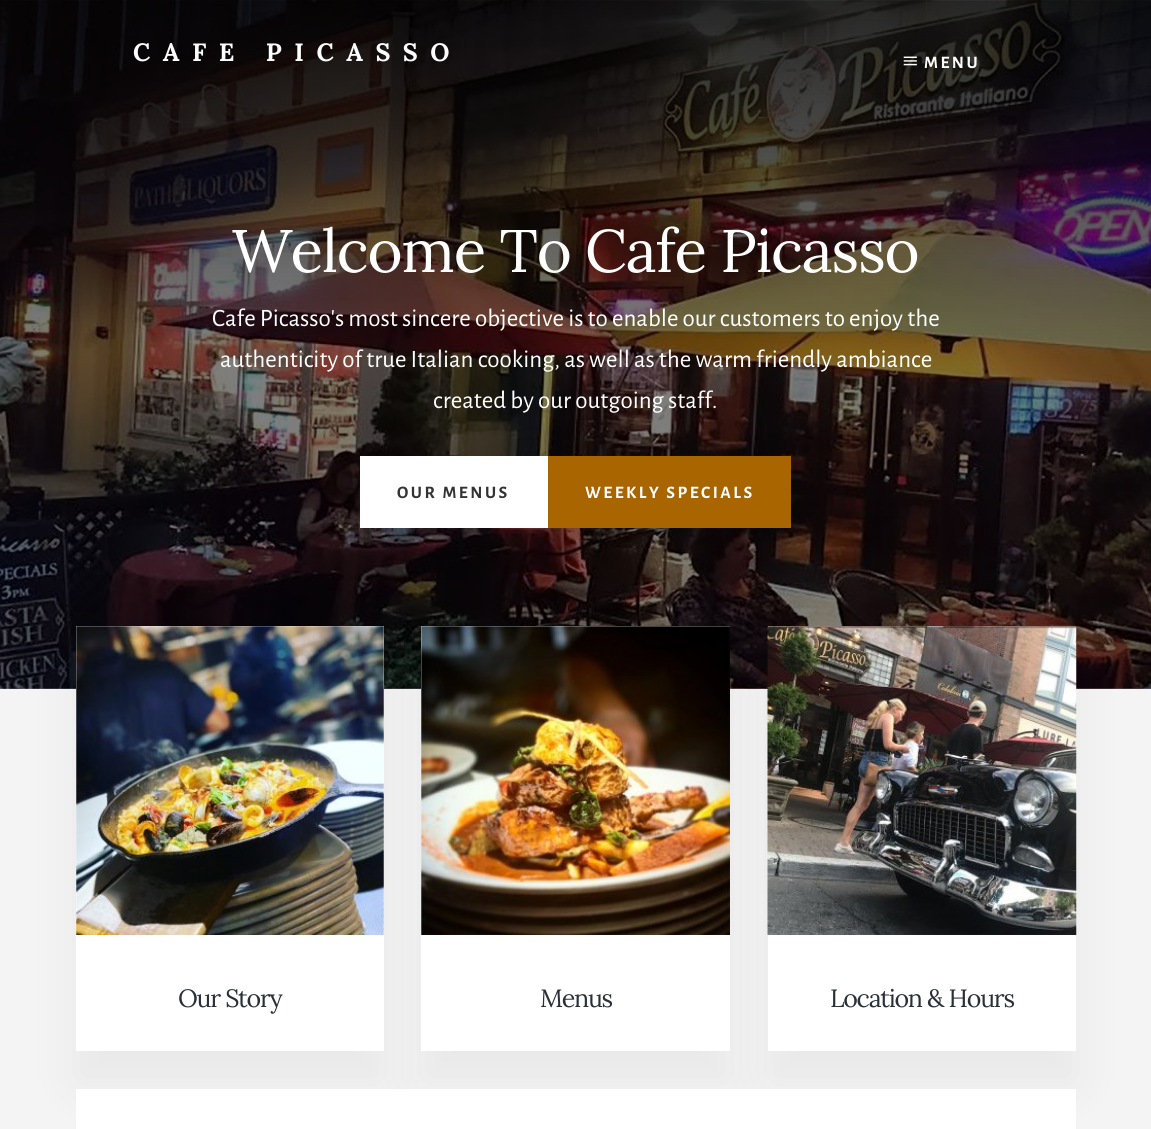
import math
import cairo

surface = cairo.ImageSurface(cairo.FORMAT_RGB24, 1151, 1129)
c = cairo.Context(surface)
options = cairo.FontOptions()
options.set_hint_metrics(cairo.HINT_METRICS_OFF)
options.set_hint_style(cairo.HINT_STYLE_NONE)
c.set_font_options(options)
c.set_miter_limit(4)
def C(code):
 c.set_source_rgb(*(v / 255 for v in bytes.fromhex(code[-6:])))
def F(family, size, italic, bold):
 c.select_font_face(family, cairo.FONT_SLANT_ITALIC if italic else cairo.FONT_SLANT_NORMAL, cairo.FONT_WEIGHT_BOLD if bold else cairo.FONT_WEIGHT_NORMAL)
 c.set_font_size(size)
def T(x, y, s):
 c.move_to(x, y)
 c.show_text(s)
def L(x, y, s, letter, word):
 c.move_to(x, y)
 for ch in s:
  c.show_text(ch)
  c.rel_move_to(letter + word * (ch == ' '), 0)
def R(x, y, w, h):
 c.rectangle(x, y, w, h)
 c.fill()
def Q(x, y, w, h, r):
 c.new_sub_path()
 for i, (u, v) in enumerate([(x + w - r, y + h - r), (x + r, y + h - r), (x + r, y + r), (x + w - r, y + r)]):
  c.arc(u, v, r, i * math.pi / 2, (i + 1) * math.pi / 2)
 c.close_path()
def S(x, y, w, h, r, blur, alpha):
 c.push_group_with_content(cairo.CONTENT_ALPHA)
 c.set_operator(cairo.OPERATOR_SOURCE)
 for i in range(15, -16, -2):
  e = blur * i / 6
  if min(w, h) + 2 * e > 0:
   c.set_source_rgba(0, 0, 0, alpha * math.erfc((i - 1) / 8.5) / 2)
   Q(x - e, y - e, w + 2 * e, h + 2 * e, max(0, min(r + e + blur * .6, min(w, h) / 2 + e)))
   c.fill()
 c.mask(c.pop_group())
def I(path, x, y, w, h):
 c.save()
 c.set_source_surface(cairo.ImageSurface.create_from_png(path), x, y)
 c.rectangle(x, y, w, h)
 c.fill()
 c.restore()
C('f4f4f4')
c.paint()
I('1.png',0,0,1151,689)
F('Lora',25,0,1)
C('ffffff')
L(133,61,'CAFE PICASSO',12.5,0)
I('2.png',903,56,14,10)
F('Alegreya Sans',17.5,0,1)
L(924,68,'MENU',2.5,0)
F('Lora',60,0,0)
L(232,272,'Welcome To Cafe Picasso',-1.25,0)
F('Alegreya Sans',25,0,0)
T(212,326,'Cafe Picasso\'s most sincere objective is to enable our customers to enjoy the')
T(220,367,'authenticity of true Italian cooking, as well as the warm friendly ambiance')
T(433,408,'created by our outgoing staff.')
R(360,456,188,72)
F('Alegreya Sans',17.5,0,1)
C('333333')
L(397,498,'OUR MENUS',2.5,0)
C('a86500')
R(548,456,243,72)
C('ffffff')
L(585,498,'WEEKLY SPECIALS',2.5,0)
C('000000')
S(76,658,308,425,0,25,.05)
C('ffffff')
R(76,626,308,425)
I('3.png',76,626,308,309)
F('Lora',25,0,0)
C('293038')
L(178,1007,'Our Story',-1.25,0)
C('000000')
S(421,658,309,425,0,25,.05)
C('ffffff')
R(421,626,309,425)
I('4.png',421,626,309,309)
C('293038')
L(540,1007,'Menus',-1.25,0)
C('000000')
S(768,658,308,425,0,25,.05)
C('ffffff')
R(768,626,308,425)
I('5.png',767,626,310,309)
C('293038')
L(830,1007,'Location & Hours',-1.25,0)
C('ffffff')
R(76,1089,1000,40)
surface.write_to_png('o.png')
